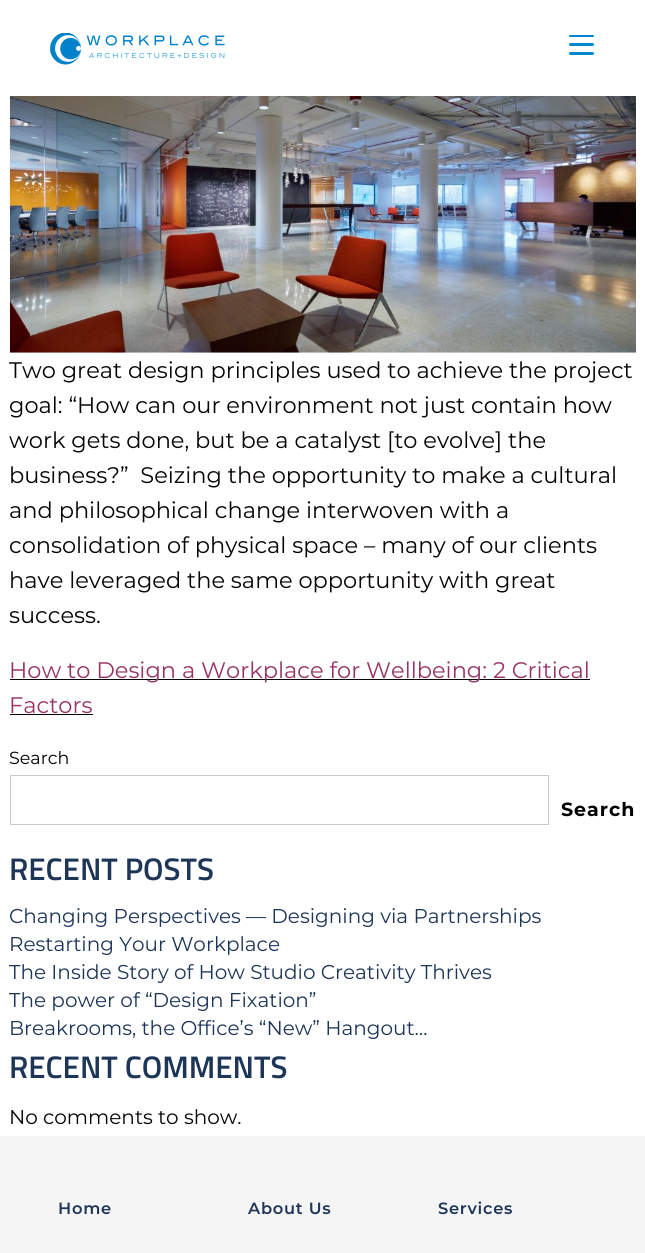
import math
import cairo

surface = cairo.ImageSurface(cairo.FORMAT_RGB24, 645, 1253)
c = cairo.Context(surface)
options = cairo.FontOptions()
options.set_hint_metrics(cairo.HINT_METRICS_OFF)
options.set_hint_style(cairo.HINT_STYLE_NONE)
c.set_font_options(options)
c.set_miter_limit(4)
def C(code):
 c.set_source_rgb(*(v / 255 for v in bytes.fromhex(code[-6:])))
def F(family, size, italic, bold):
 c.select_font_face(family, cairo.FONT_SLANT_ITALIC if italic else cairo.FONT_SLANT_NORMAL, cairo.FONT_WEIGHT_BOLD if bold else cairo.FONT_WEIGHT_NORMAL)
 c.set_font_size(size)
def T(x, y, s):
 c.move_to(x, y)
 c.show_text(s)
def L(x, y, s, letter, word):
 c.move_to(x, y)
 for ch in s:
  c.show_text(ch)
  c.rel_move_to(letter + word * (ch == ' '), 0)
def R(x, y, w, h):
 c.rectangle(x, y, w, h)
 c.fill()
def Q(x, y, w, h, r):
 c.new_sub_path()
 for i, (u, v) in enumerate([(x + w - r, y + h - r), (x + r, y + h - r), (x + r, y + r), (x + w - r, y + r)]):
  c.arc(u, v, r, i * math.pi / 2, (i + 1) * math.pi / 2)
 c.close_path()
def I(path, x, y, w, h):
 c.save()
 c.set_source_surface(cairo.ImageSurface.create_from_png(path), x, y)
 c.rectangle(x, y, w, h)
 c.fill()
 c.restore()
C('ffffff')
c.paint()
I('1.png',50,33,175,32)
C('0088ce')
Q(569,35,25,2,1)
c.fill()
Q(569,43,25,3,1.5)
c.fill()
Q(569,52,25,3,1.5)
c.fill()
I('2.png',9,96,627,257)
F('Montserrat',22.5,0,0)
C('070403')
T(9,378,'Two great design principles used to achieve the project')
T(9,413,'goal: “How can our environment not just contain how')
T(9,448,'work gets done, but be a catalyst [to evolve] the')
T(9,483,'business?”  Seizing the opportunity to make a cultural')
T(9,518,'and philosophical change interwoven with a')
T(9,553,'consolidation of physical space – many of our clients')
T(9,588,'have leveraged the same opportunity with great')
T(9,623,'success.')
R(10,679,580,1)
C('993366')
T(9,678,'How to Design a Workplace for Wellbeing: 2 Critical')
T(9,713,'Factors')
C('070403')
R(10,714,83,1)
F('Montserrat',17.5,0,0)
C('000000')
T(9,764,'Search')
c.rectangle(10.5,775.5,538,49)
C('cacaca')
c.set_line_width(1)
c.stroke()
F('Montserrat',19,0,1)
C('000000')
L(561,816,'Search',1,0)
F('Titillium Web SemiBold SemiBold',31.25,0,0)
C('1d3557')
T(9,880,'RECENT POSTS')
F('Montserrat',20,0,0)
T(9,923,'Changing Perspectives — Designing via Partnerships')
T(9,951,'Restarting Your Workplace')
T(9,979,'The Inside Story of How Studio Creativity Thrives')
T(9,1007,'The power of “Design Fixation”')
T(9,1035,'Breakrooms, the Office’s “New” Hangout…')
F('Titillium Web SemiBold SemiBold',31.25,0,0)
T(9,1078,'RECENT COMMENTS')
F('Montserrat',20,0,0)
C('070403')
T(9,1124,'No comments to show.')
C('f5f5f5')
R(0,1136,645,117)
F('Montserrat SemiBold',16.25,0,0)
C('1d3557')
L(58,1214,'Home',.75,0)
L(248,1214,'About Us',.75,0)
L(438,1214,'Services',.75,0)
surface.write_to_png('o.png')
